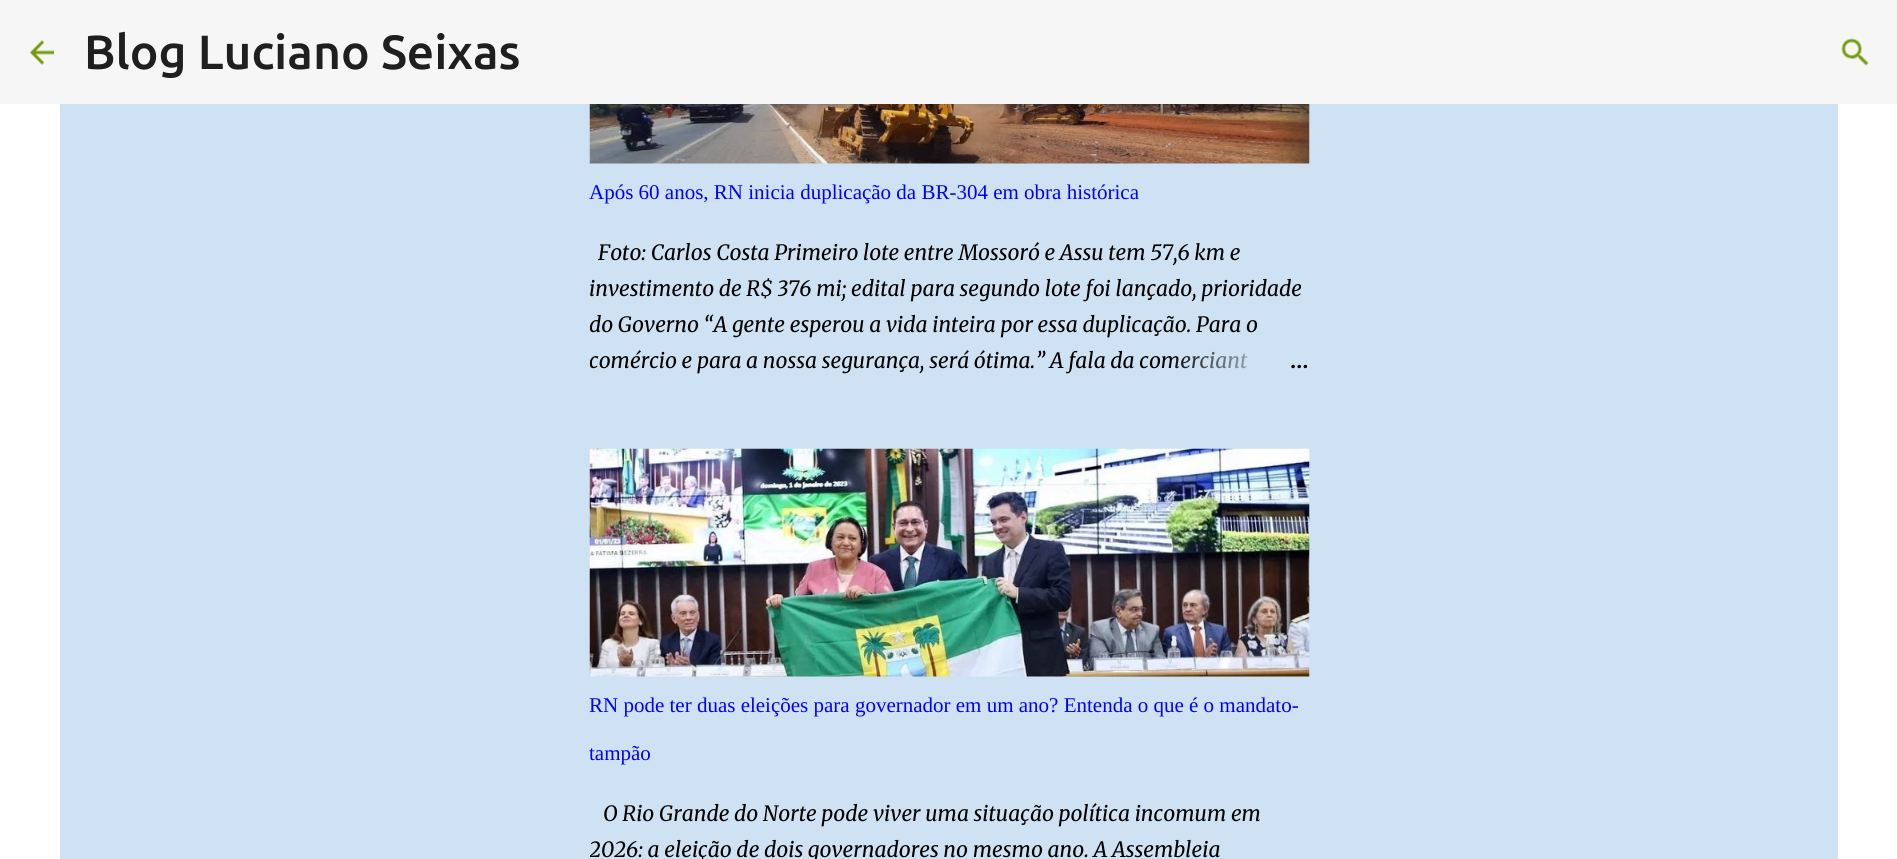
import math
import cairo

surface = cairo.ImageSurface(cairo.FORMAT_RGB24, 1897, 859)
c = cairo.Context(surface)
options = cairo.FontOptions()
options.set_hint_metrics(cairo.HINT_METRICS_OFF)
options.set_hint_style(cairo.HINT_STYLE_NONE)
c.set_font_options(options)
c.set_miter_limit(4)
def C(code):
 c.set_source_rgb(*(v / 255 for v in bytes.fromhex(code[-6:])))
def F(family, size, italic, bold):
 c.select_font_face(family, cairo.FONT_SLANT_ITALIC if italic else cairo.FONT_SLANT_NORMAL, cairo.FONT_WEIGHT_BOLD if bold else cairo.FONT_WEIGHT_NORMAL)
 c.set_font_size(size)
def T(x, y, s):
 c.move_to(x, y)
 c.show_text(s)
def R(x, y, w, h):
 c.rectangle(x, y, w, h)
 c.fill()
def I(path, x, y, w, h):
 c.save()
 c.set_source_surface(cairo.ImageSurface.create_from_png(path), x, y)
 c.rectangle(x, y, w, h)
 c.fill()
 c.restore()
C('ffffff')
c.paint()
C('f6f6f6')
R(0,0,1897,104)
I('1.png',30,40,24,25)
F('Ubuntu Medium',48,0,0)
C('1f1f1f')
T(84,69,'Blog Luciano Seixas')
I('2.png',1841,38,28,28)
C('cfe2f3')
R(60,104,1778,755)
I('3.png',589,104,721,60)
F('Liberation Serif',21,0,0)
C('0000ff')
T(589,199,'Após 60 anos, RN inicia duplicação da BR-304 em obra histórica')
F('Merriweather',21,1,0)
C('000000')
T(598,260,'Foto: Carlos Costa Primeiro lote entre Mossoró e Assu tem 57,6 km e')
T(589,296,'investimento de R$ 376 mi; edital para segundo lote foi lançado, prioridade')
c.save()
c.rectangle(590,236,720,144)
c.clip()
T(589,332,'do Governo “A gente esperou a vida inteira por essa duplicação. Para o')
T(589,368,'comércio e para a nossa segurança, será ótima.” A fala da comerciant')
c.restore()
gradient = cairo.LinearGradient(1310,362,1166,362)
gradient.add_color_stop_rgba(0,0.812,0.886,0.953,1)
gradient.add_color_stop_rgba(.2,0.812,0.886,0.953,1)
gradient.add_color_stop_rgba(1,0.812,0.886,0.953,0)
c.set_source(gradient)
R(1168,351,80,18)
F('Merriweather',21,0,1)
C('000000')
T(1290,368,'…')
I('4.png',589,448,721,229)
F('Liberation Serif',21,0,0)
C('0000ff')
T(589,712,'RN pode ter duas eleições para governador em um ano? Entenda o que é o mandato-')
T(589,760,'tampão')
F('Merriweather',21,1,0)
C('000000')
T(603,821,'O Rio Grande do Norte pode viver uma situação política incomum em')
c.save()
c.rectangle(590,797,720,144)
c.clip()
T(589,857,'2026: a eleição de dois governadores no mesmo ano. A Assembleia')
c.restore()
surface.write_to_png('o.png')
